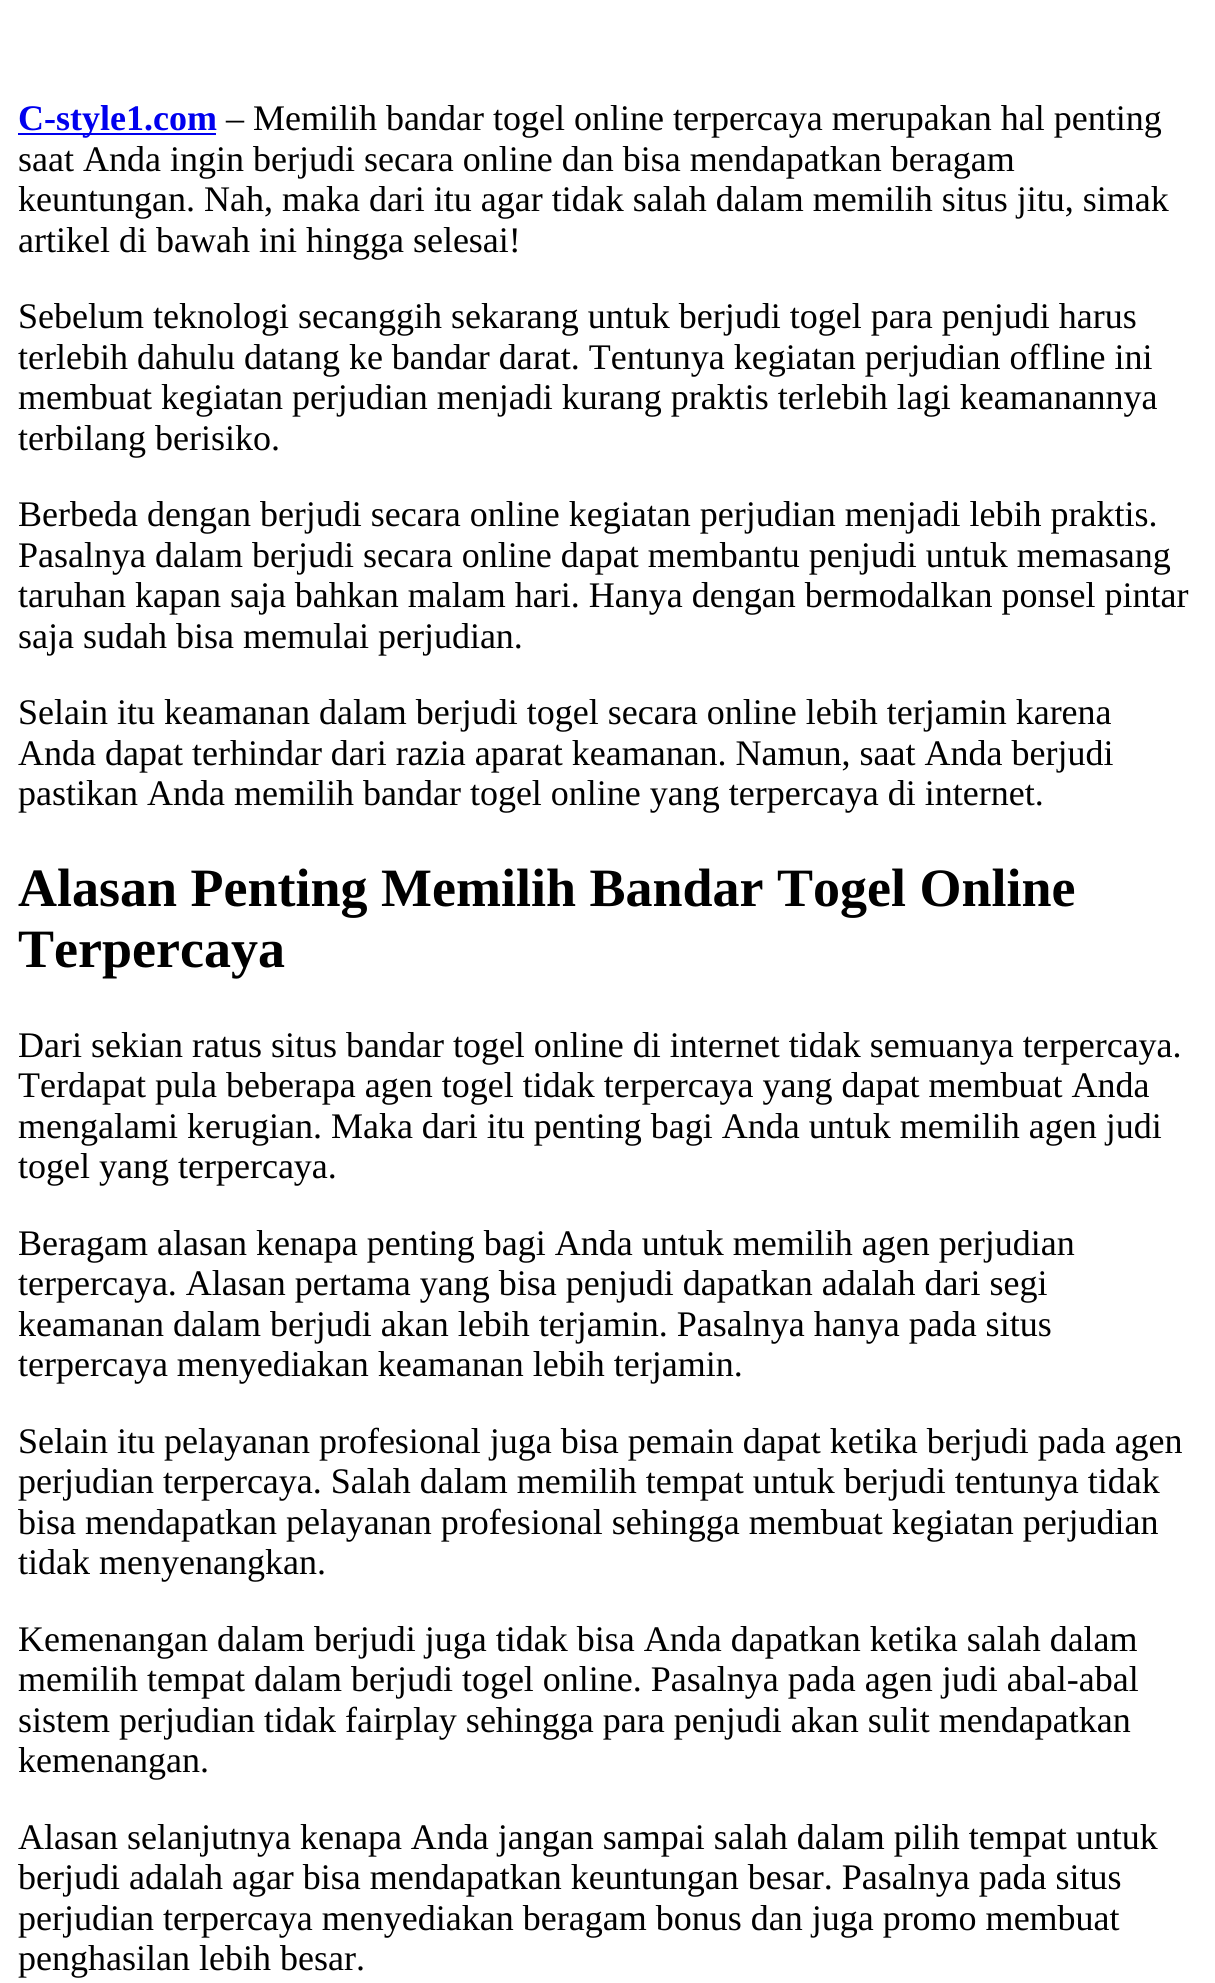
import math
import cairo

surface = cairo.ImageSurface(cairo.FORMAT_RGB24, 1215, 1983)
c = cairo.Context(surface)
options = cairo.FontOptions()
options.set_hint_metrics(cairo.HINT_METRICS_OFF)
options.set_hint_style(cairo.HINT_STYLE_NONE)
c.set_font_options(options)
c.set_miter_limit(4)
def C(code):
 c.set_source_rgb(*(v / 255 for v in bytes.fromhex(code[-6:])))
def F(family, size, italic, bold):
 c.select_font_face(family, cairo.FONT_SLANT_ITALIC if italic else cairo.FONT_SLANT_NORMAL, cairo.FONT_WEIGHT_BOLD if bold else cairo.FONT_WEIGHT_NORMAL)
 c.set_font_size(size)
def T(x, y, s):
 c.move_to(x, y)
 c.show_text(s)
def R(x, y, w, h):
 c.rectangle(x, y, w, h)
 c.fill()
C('ffffff')
c.paint()
C('0000ee')
R(18,133,198,2)
F('Liberation Serif',36,0,1)
T(18,130,'C-style1.com')
F('Liberation Serif',36,0,0)
C('000000')
T(226,130,'– Memilih bandar togel online terpercaya merupakan hal penting')
T(18,171,'saat Anda ingin berjudi secara online dan bisa mendapatkan beragam')
T(18,211,'keuntungan. Nah, maka dari itu agar tidak salah dalam memilih situs jitu, simak')
T(18,252,'artikel di bawah ini hingga selesai!')
T(18,328,'Sebelum teknologi secanggih sekarang untuk berjudi togel para penjudi harus')
T(18,369,'terlebih dahulu datang ke bandar darat. Tentunya kegiatan perjudian offline ini')
T(18,409,'membuat kegiatan perjudian menjadi kurang praktis terlebih lagi keamanannya')
T(18,450,'terbilang berisiko.')
T(18,526,'Berbeda dengan berjudi secara online kegiatan perjudian menjadi lebih praktis.')
T(18,567,'Pasalnya dalam berjudi secara online dapat membantu penjudi untuk memasang')
T(18,607,'taruhan kapan saja bahkan malam hari. Hanya dengan bermodalkan ponsel pintar')
T(18,648,'saja sudah bisa memulai perjudian.')
T(18,724,'Selain itu keamanan dalam berjudi togel secara online lebih terjamin karena')
T(18,765,'Anda dapat terhindar dari razia aparat keamanan. Namun, saat Anda berjudi')
T(18,805,'pastikan Anda memilih bandar togel online yang terpercaya di internet.')
F('Liberation Serif',54,0,1)
T(18,906,'Alasan Penting Memilih Bandar Togel Online')
T(18,967,'Terpercaya')
F('Liberation Serif',36,0,0)
T(18,1057,'Dari sekian ratus situs bandar togel online di internet tidak semuanya terpercaya.')
T(18,1097,'Terdapat pula beberapa agen togel tidak terpercaya yang dapat membuat Anda')
T(18,1138,'mengalami kerugian. Maka dari itu penting bagi Anda untuk memilih agen judi')
T(18,1178,'togel yang terpercaya.')
T(18,1255,'Beragam alasan kenapa penting bagi Anda untuk memilih agen perjudian')
T(18,1295,'terpercaya. Alasan pertama yang bisa penjudi dapatkan adalah dari segi')
T(18,1336,'keamanan dalam berjudi akan lebih terjamin. Pasalnya hanya pada situs')
T(18,1376,'terpercaya menyediakan keamanan lebih terjamin.')
T(18,1453,'Selain itu pelayanan profesional juga bisa pemain dapat ketika berjudi pada agen')
T(18,1493,'perjudian terpercaya. Salah dalam memilih tempat untuk berjudi tentunya tidak')
T(18,1534,'bisa mendapatkan pelayanan profesional sehingga membuat kegiatan perjudian')
T(18,1574,'tidak menyenangkan.')
T(18,1651,'Kemenangan dalam berjudi juga tidak bisa Anda dapatkan ketika salah dalam')
T(18,1691,'memilih tempat dalam berjudi togel online. Pasalnya pada agen judi abal-abal')
T(18,1732,'sistem perjudian tidak fairplay sehingga para penjudi akan sulit mendapatkan')
T(18,1772,'kemenangan.')
T(18,1849,'Alasan selanjutnya kenapa Anda jangan sampai salah dalam pilih tempat untuk')
T(18,1889,'berjudi adalah agar bisa mendapatkan keuntungan besar. Pasalnya pada situs')
T(18,1930,'perjudian terpercaya menyediakan beragam bonus dan juga promo membuat')
T(18,1970,'penghasilan lebih besar.')
surface.write_to_png('o.png')
